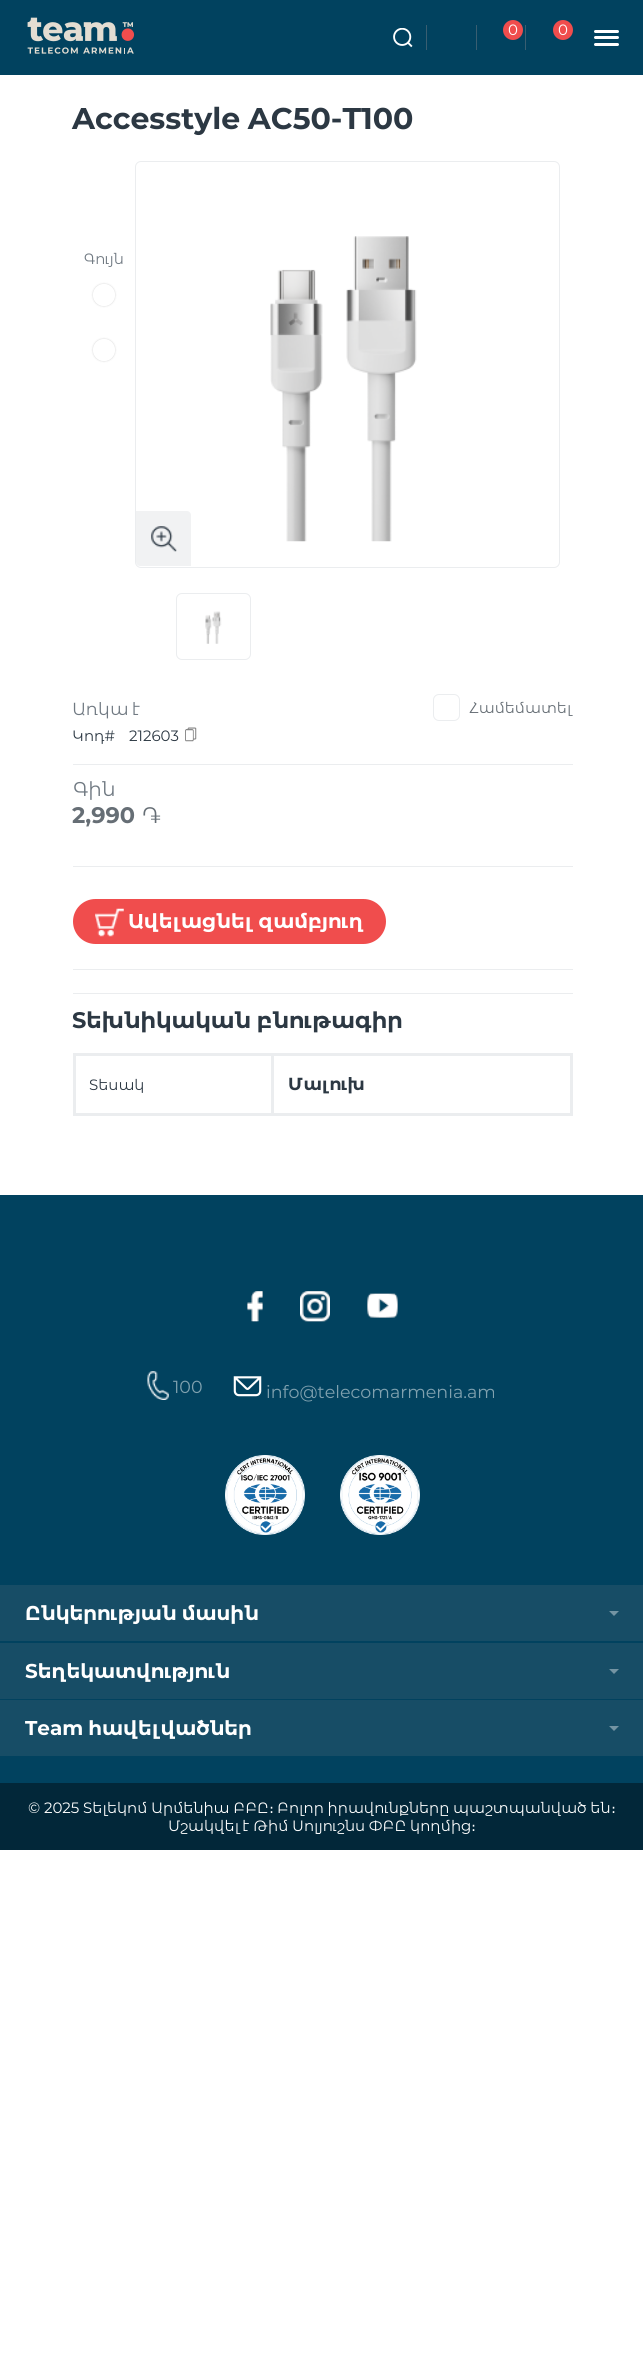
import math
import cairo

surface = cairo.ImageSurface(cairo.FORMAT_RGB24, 643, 2374)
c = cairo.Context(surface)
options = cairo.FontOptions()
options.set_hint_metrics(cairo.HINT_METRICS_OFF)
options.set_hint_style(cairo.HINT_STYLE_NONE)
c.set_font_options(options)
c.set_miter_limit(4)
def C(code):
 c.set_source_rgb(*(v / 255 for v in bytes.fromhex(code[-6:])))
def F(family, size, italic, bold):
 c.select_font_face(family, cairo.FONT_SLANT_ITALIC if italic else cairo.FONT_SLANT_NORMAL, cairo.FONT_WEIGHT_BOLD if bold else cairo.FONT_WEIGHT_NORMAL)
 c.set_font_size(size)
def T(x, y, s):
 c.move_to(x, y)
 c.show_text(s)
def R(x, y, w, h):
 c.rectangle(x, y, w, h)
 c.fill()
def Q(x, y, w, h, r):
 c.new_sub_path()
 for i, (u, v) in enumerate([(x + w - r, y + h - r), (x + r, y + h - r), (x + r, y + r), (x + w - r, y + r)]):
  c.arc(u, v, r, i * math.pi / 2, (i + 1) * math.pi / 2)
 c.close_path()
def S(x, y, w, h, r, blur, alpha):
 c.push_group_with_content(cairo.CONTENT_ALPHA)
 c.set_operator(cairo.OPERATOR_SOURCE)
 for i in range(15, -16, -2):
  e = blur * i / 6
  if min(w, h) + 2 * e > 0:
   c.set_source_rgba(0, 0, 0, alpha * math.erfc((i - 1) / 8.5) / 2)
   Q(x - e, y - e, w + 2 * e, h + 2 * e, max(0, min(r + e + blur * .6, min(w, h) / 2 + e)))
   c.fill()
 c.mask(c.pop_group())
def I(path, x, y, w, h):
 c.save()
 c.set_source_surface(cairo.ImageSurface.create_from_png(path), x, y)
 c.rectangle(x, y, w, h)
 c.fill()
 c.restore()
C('ffffff')
c.paint()
C('01425f')
R(0,0,643,75)
I('1.png',393,28,20,20)
C('395e71')
R(426,25,1,25)
R(476,25,1,25)
C('ffffff')
Q(594,30,25,3,1.5)
c.fill()
Q(594,36,25,3,1.5)
c.fill()
Q(594,43,25,3,1.5)
c.fill()
I('2.png',27,17,108,37)
C('f04d4d')
c.arc(513,30,10,0,2 * math.pi)
c.fill()
F('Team',15,0,0)
C('ffffff')
T(508,35,'0')
C('395e71')
R(525,25,1,25)
C('f04d4d')
c.new_path()
c.arc(563,30,10,0,2 * math.pi)
c.fill()
C('ffffff')
T(558,35,'0')
F('Team',30,0,1)
C('2c3843')
T(72,129,'Accesstyle AC50-T100')
F('Team',15,0,0)
C('707982')
T(83,264,'Գույն')
c.save()
c.set_fill_rule(cairo.FILL_RULE_EVEN_ODD)
c.new_path()
c.move_to(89,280)
c.line_to(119,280)
c.line_to(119,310)
c.line_to(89,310)
c.close_path()
c.move_to(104,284)
c.curve_to(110,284,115,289,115,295)
c.curve_to(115,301,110,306,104,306)
c.curve_to(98,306,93,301,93,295)
c.curve_to(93,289,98,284,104,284)
c.close_path()
c.clip()
C('000000')
S(93,284,22,22,11,1,.2)
c.restore()
c.save()
c.set_fill_rule(cairo.FILL_RULE_EVEN_ODD)
c.new_path()
c.move_to(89,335)
c.line_to(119,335)
c.line_to(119,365)
c.line_to(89,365)
c.close_path()
c.move_to(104,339)
c.curve_to(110,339,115,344,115,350)
c.curve_to(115,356,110,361,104,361)
c.curve_to(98,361,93,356,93,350)
c.curve_to(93,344,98,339,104,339)
c.close_path()
c.clip()
C('000000')
S(93,339,22,22,11,1,.2)
c.restore()
Q(135.5,161.5,424,406,5.5)
C('ebedef')
c.set_line_width(1)
c.stroke()
c.set_source_rgba(0.922,0.929,0.937,0.7)
c.new_path()
c.move_to(136,511)
c.line_to(187,511)
c.curve_to(189,511,191,513,191,515)
c.line_to(191,566)
c.line_to(140,566)
c.curve_to(138,566,136,564,136,562)
c.close_path()
c.fill()
I('3.png',151,526,26,26)
I('4.png',270,236,147,306)
Q(176.5,593.5,74,66,5.5)
C('ebedef')
c.stroke()
I('5.png',205,611,17,33)
R(73,764,500,1)
F('Team',17.5,0,0)
C('707982')
T(72,715,'Առկա է')
Q(433.5,694.5,26,26,5.5)
C('ebedef')
c.stroke()
F('Team',15,0,0)
C('666e75')
T(469,713,'Համեմատել')
C('2c3843')
T(72,741,'Կոդ#')
T(129,741,'212603')
I('6.png',185,727,12,15)
C('ebedef')
R(73,866,500,1)
F('Team',20,0,0)
C('707982')
T(72,796,'Գին')
F('Team',22.5,0,1)
C('666e75')
T(72,823,'2,990')
F('Team',22.5,0,0)
T(141,823,'֏')
C('ebedef')
R(73,969,500,1)
C('f04d4d')
Q(73,899,313,45,22.5)
c.fill()
I('7.png',95,908,29,29)
F('Team',20,0,1)
C('ffffff')
T(128,928,'Ավելացնել զամբյուղ')
C('ebedef')
R(73,993,500,1)
F('Team',22.5,0,1)
C('2c3843')
T(72,1028,'Տեխնիկական բնութագիր')
C('ebedef')
R(271,1053,302,3)
R(570,1053,3,62)
R(271,1113,302,3)
R(271,1053,3,62)
R(73,1053,201,3)
R(73,1113,201,3)
R(73,1053,3,62)
F('Team',15,0,0)
C('2c3843')
T(89,1090,'Տեսակ')
F('Team',17.5,0,1)
T(288,1090,'Մալուխ')
C('01425f')
R(0,1195,643,588)
I('8.png',247,1291,16,31)
I('9.png',247,1291,16,31)
I('10.png',300,1291,30,31)
I('11.png',300,1291,30,31)
I('12.png',367,1293,31,25)
I('13.png',367,1293,31,25)
I('14.png',147,1371,22,29)
F('Team',17.5,0,0)
C('80a1af')
T(173,1393,'100')
I('15.png',233,1376,29,21)
T(266,1398,'info@telecomarmenia.am')
I('16.png',225,1455,80,80)
I('17.png',340,1455,80,80)
C('174d66')
R(0,1585,643,56)
F('Team',20,0,1)
C('ffffff')
T(25,1620,'Ընկերության մասին')
C('7494a3')
c.new_path()
c.move_to(609,1611)
c.line_to(619,1611)
c.line_to(614,1616)
c.close_path()
c.fill()
C('174d66')
R(0,1643,643,56)
C('ffffff')
T(25,1678,'Տեղեկատվություն')
C('7494a3')
c.new_path()
c.move_to(609,1669)
c.line_to(619,1669)
c.line_to(614,1674)
c.close_path()
c.fill()
C('174d66')
R(0,1700,643,56)
C('ffffff')
T(25,1735,'Team հավելվածներ')
C('7494a3')
c.new_path()
c.move_to(609,1726)
c.line_to(619,1726)
c.line_to(614,1731)
c.close_path()
c.fill()
C('022739')
R(0,1783,643,67)
F('Team',15,0,0)
C('ffffff')
T(28,1813,'© 2025 Տելեկոմ Արմենիա ԲԲԸ')
F('DejaVu Sans',15,0,0)
T(269,1813,'։')
F('Team',15,0,0)
T(277,1813,'Բոլոր իրավունքները պաշտպանված են')
F('DejaVu Sans',15,0,0)
T(611,1813,'։')
F('Team',15,0,0)
T(168,1831,'Մշակվել է Թիմ Սոլյուշնս ՓԲԸ կողմից')
F('DejaVu Sans',15,0,0)
T(471,1831,'։')
surface.write_to_png('o.png')
